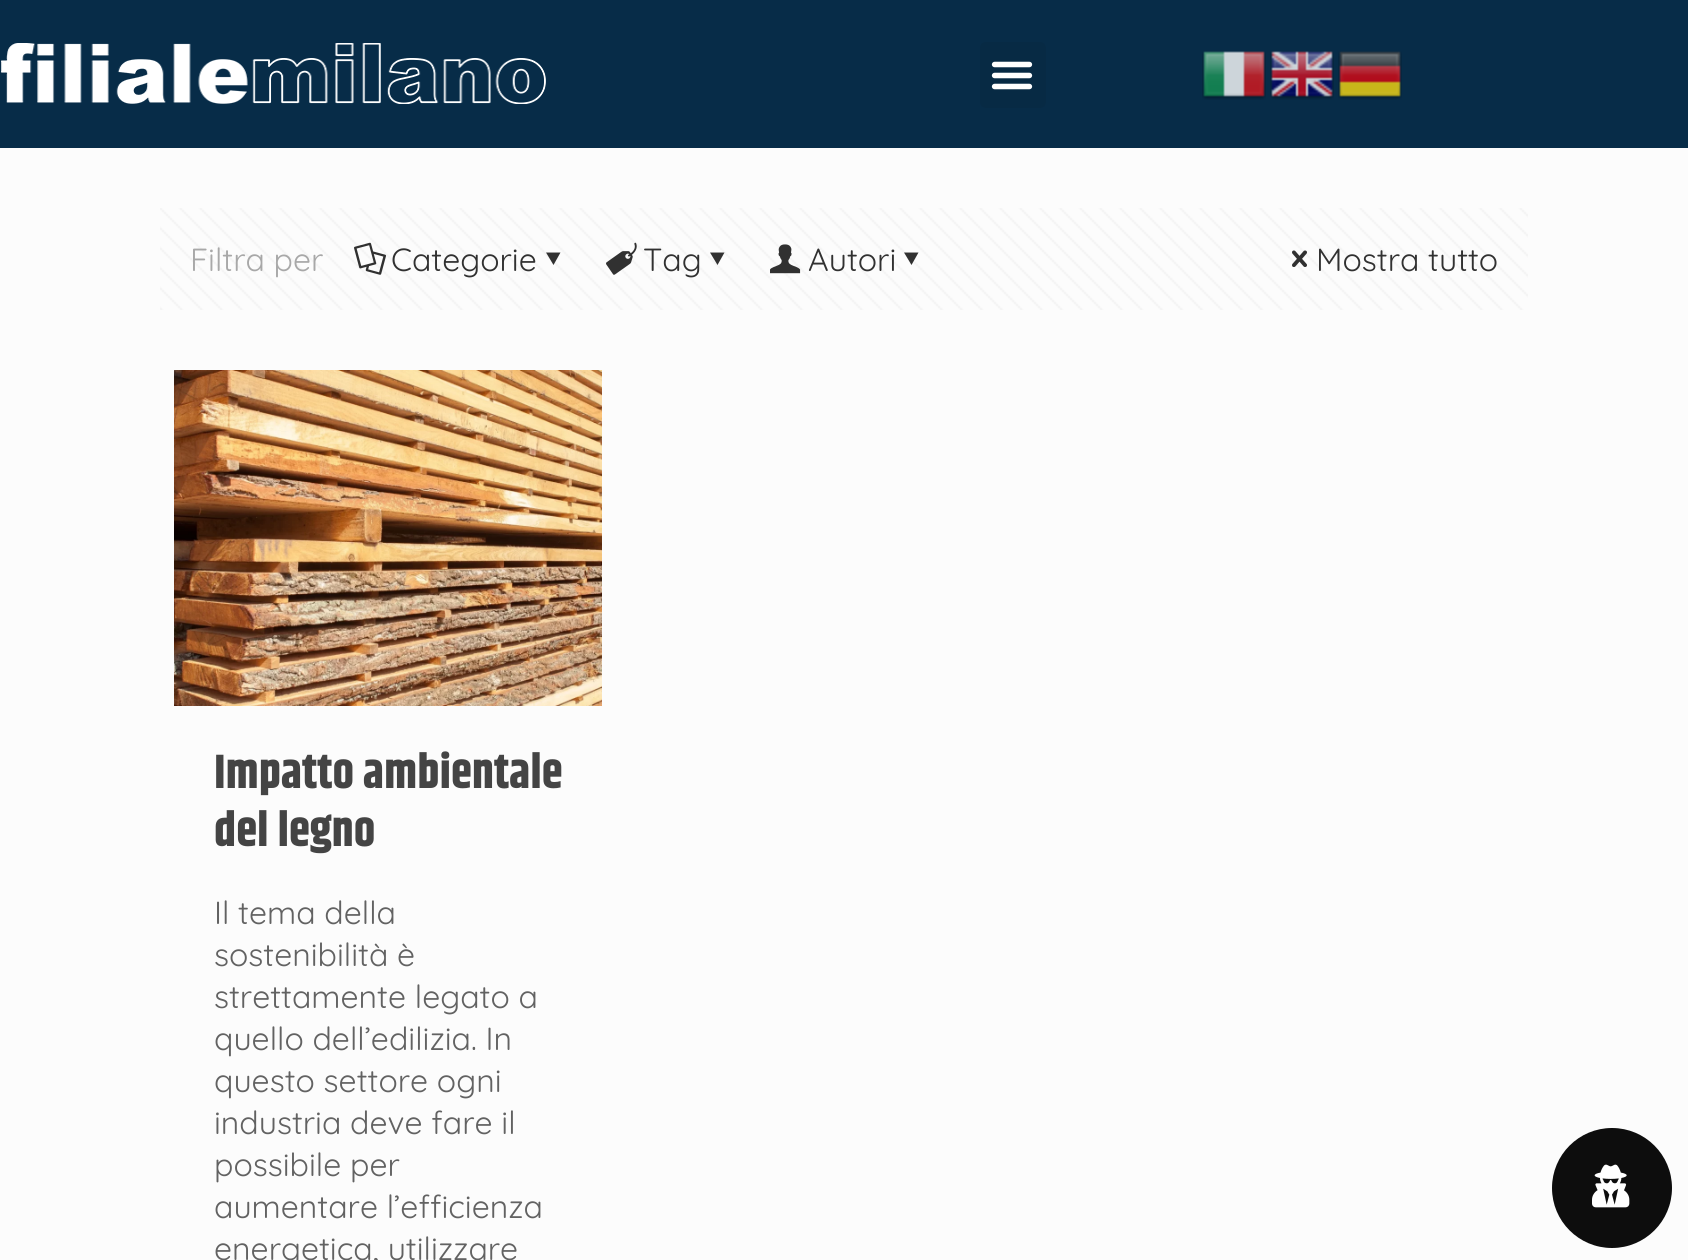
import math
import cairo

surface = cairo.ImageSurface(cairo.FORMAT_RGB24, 1688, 1260)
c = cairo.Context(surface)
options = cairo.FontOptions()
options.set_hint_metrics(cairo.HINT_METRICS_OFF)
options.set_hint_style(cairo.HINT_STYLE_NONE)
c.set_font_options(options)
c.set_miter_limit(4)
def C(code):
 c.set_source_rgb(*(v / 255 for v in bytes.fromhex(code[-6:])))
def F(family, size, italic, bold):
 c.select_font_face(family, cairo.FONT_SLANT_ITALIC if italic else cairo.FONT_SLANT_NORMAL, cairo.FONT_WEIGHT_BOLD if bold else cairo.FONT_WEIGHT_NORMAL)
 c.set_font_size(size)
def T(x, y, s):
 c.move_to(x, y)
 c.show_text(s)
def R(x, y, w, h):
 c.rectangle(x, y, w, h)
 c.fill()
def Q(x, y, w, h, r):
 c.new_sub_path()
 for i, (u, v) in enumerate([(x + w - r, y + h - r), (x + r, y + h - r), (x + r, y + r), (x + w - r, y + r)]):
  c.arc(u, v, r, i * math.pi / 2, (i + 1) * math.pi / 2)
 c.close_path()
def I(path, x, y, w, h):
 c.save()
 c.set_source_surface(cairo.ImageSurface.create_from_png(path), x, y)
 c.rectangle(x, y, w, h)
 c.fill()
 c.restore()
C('fcfcfc')
c.paint()
C('072c48')
R(0,0,1688,148)
I('1.png',1,43,545,61)
C('072a44')
Q(980,42,66,66,6)
c.fill()
I('2.png',991,61,42,29)
I('3.png',1202,51,64,49)
I('4.png',1270,51,64,49)
I('5.png',1338,51,64,49)
I('6.png',160,208,1368,102)
F('Quicksand',32,0,0)
C('a8a8a8')
T(190,271,'Filtra per')
I('7.png',354,242,32,33)
C('313131')
T(391,271,'Categorie')
c.new_path()
c.move_to(560.5,252.5)
c.line_to(553.5,265)
c.line_to(546,252.5)
c.close_path()
c.fill()
I('8.png',606,242,31,33)
T(643,271,'Tag')
c.new_path()
c.move_to(724.5,252.5)
c.line_to(717.5,265)
c.line_to(710,252.5)
c.close_path()
c.fill()
I('9.png',770,244,31,30)
T(808,271,'Autori')
c.new_path()
c.move_to(918.5,252.5)
c.line_to(911.5,265)
c.line_to(904,252.5)
c.close_path()
c.fill()
I('10.png',1292,250,15,17)
T(1316,271,'Mostra tutto')
I('11.png',174,370,428,336)
F('Khand',48,0,1)
C('444444')
T(214,788,'Impatto ambientale')
T(214,846,'del legno')
F('Quicksand',32,0,0)
C('626262')
T(214,924,'Il tema della')
T(214,966,'sostenibilità è')
T(214,1008,'strettamente legato a')
T(214,1050,'quello dell’edilizia. In')
T(214,1092,'questo settore ogni')
T(214,1134,'industria deve fare il')
T(214,1176,'possibile per')
T(214,1218,'aumentare l’efficienza')
T(214,1260,'energetica, utilizzare')
C('0d0d0d')
c.new_path()
c.arc(1612,1188,60,0,2 * math.pi)
c.fill()
I('12.png',1592,1164,38,44)
surface.write_to_png('o.png')
